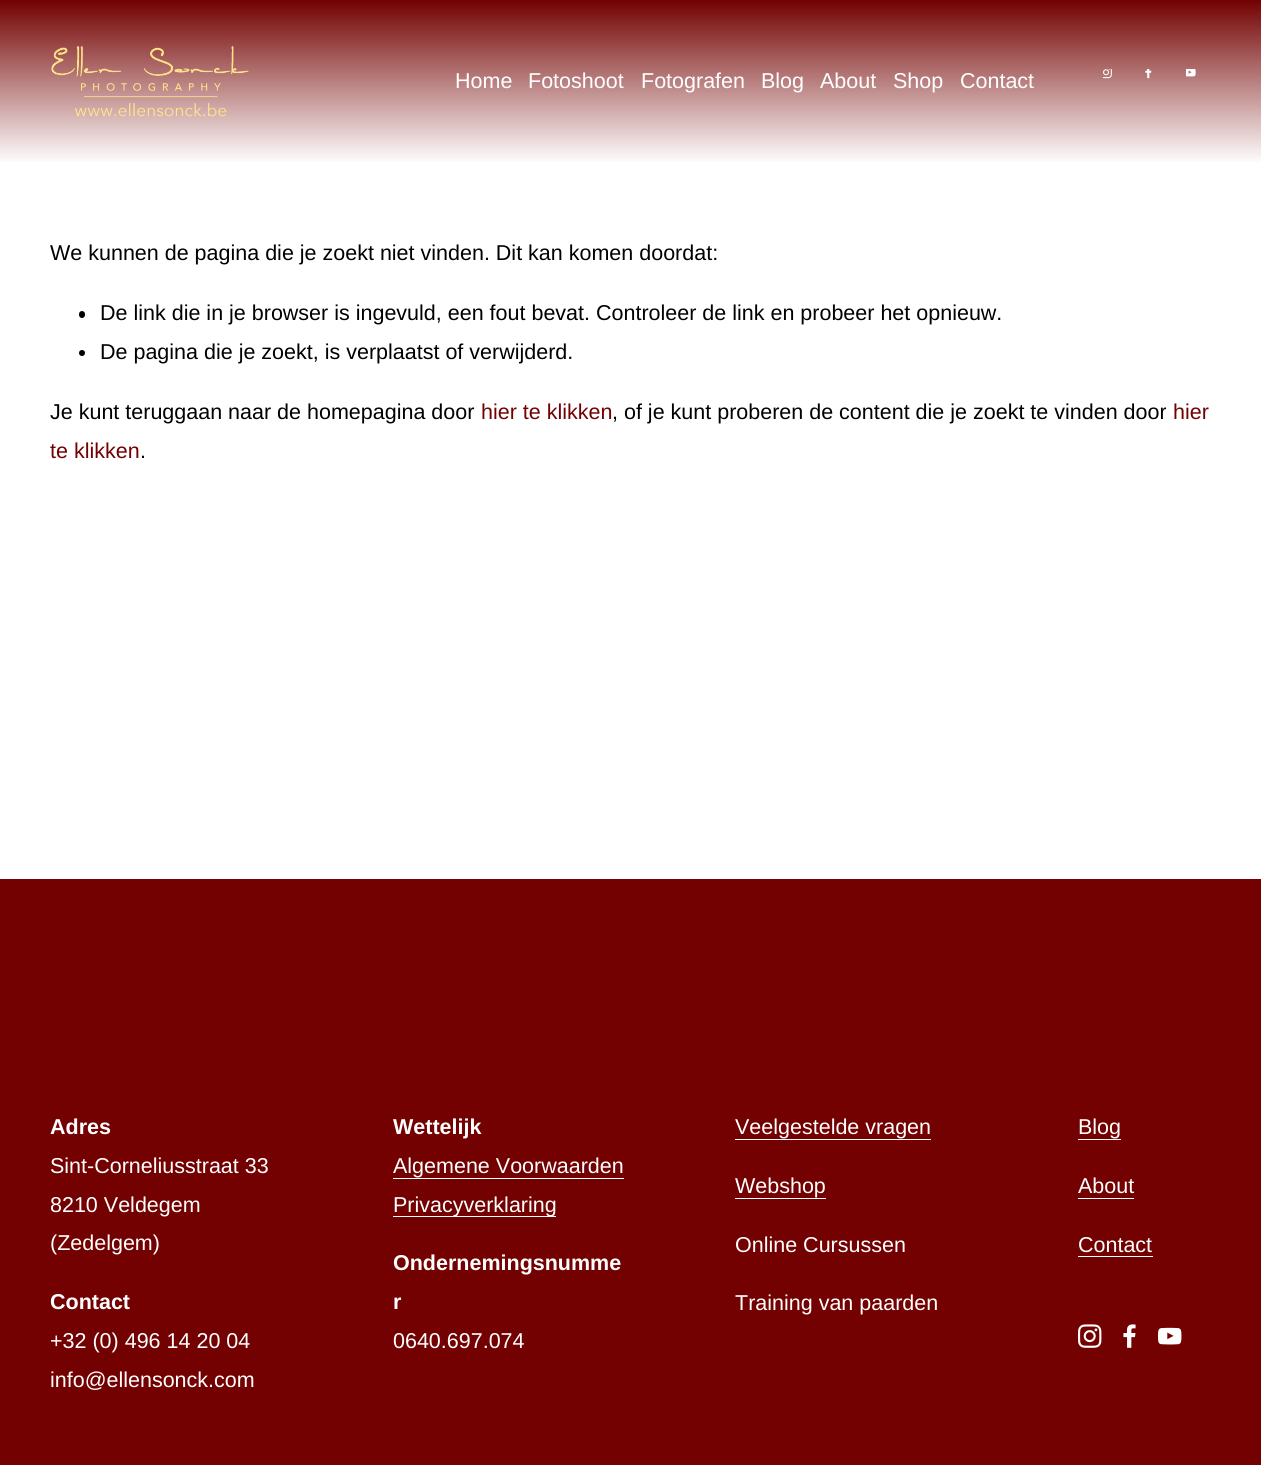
import math
import cairo

surface = cairo.ImageSurface(cairo.FORMAT_RGB24, 1261, 1465)
c = cairo.Context(surface)
options = cairo.FontOptions()
options.set_hint_metrics(cairo.HINT_METRICS_OFF)
options.set_hint_style(cairo.HINT_STYLE_NONE)
c.set_font_options(options)
c.set_miter_limit(4)
def C(code):
 c.set_source_rgb(*(v / 255 for v in bytes.fromhex(code[-6:])))
def F(family, size, italic, bold):
 c.select_font_face(family, cairo.FONT_SLANT_ITALIC if italic else cairo.FONT_SLANT_NORMAL, cairo.FONT_WEIGHT_BOLD if bold else cairo.FONT_WEIGHT_NORMAL)
 c.set_font_size(size)
def T(x, y, s):
 c.move_to(x, y)
 c.show_text(s)
def R(x, y, w, h):
 c.rectangle(x, y, w, h)
 c.fill()
def Q(x, y, w, h, r):
 c.new_sub_path()
 for i, (u, v) in enumerate([(x + w - r, y + h - r), (x + r, y + h - r), (x + r, y + r), (x + w - r, y + r)]):
  c.arc(u, v, r, i * math.pi / 2, (i + 1) * math.pi / 2)
 c.close_path()
def I(path, x, y, w, h):
 c.save()
 c.set_source_surface(cairo.ImageSurface.create_from_png(path), x, y)
 c.rectangle(x, y, w, h)
 c.fill()
 c.restore()
C('ffffff')
c.paint()
gradient = cairo.LinearGradient(631,0,631,164)
gradient.add_color_stop_rgba(0,0.451,0.004,0.004,1)
gradient.add_color_stop_rgba(1,1,1,1,1)
c.set_source(gradient)
R(0,0,1261,162)
I('1.png',51,46,198,71)
F('Liberation Sans',21.5,0,0)
C('ffffff')
T(455,88,'Home')
T(528,88,'Fotoshoot')
T(641,88,'Fotografen')
T(761,88,'Blog')
T(820,88,'About')
T(893,88,'Shop')
T(960,88,'Contact')
I('2.png',1103,69,9,10)
I('3.png',1145,69,7,10)
I('4.png',1186,69,10,8)
C('000000')
T(50,260,'We kunnen de pagina die je zoekt niet vinden. Dit kan komen doordat:')
Q(79,311,6,7,3)
c.fill()
T(100,320,'De link die in je browser is ingevuld, een fout bevat. Controleer de link en probeer het opnieuw.')
c.new_path()
c.arc(82,353,3,0,2 * math.pi)
c.fill()
T(100,359,'De pagina die je zoekt, is verplaatst of verwijderd.')
T(50,419,'Je kunt teruggaan naar de homepagina door')
C('730101')
T(481,419,'hier te klikken')
C('000000')
T(612,419,', of je kunt proberen de content die je zoekt te vinden door')
C('730101')
T(1173,419,'hier')
T(50,458,'te klikken')
C('000000')
T(140,458,'.')
C('730101')
R(0,879,1261,586)
F('Liberation Sans',21.5,0,1)
C('ffffff')
T(50,1134,'Adres')
F('Liberation Sans',21.5,0,0)
T(50,1173,'Sint-Corneliusstraat 33')
T(50,1212,'8210 Veldegem')
T(50,1250,'(Zedelgem)')
F('Liberation Sans',21.5,0,1)
T(50,1309,'Contact')
F('Liberation Sans',21.5,0,0)
T(50,1348,'+32 (0) 496 14 20 04')
T(50,1387,'info@ellensonck.com')
F('Liberation Sans',21.5,0,1)
T(393,1134,'Wettelijk')
F('Liberation Sans',21.5,0,0)
T(393,1173,'Algemene Voorwaarden')
R(393,1178,231,1)
R(393,1216,163,1)
T(393,1212,'Privacyverklaring')
F('Liberation Sans',21.5,0,1)
T(393,1270,'Ondernemingsnumme')
T(393,1309,'r')
F('Liberation Sans',21.5,0,0)
T(393,1348,'0640.697.074')
T(735,1134,'Veelgestelde vragen')
R(735,1139,196,1)
T(735,1193,'Webshop')
R(735,1198,91,1)
T(735,1252,'Online Cursussen')
T(735,1310,'Training van paarden')
T(1078,1134,'Blog')
R(1078,1139,43,1)
T(1078,1193,'About')
R(1078,1198,56,1)
T(1078,1252,'Contact')
R(1078,1256,75,1)
I('5.png',1078,1324,24,24)
I('6.png',1123,1324,13,24)
I('7.png',1158,1327,24,18)
surface.write_to_png('o.png')
